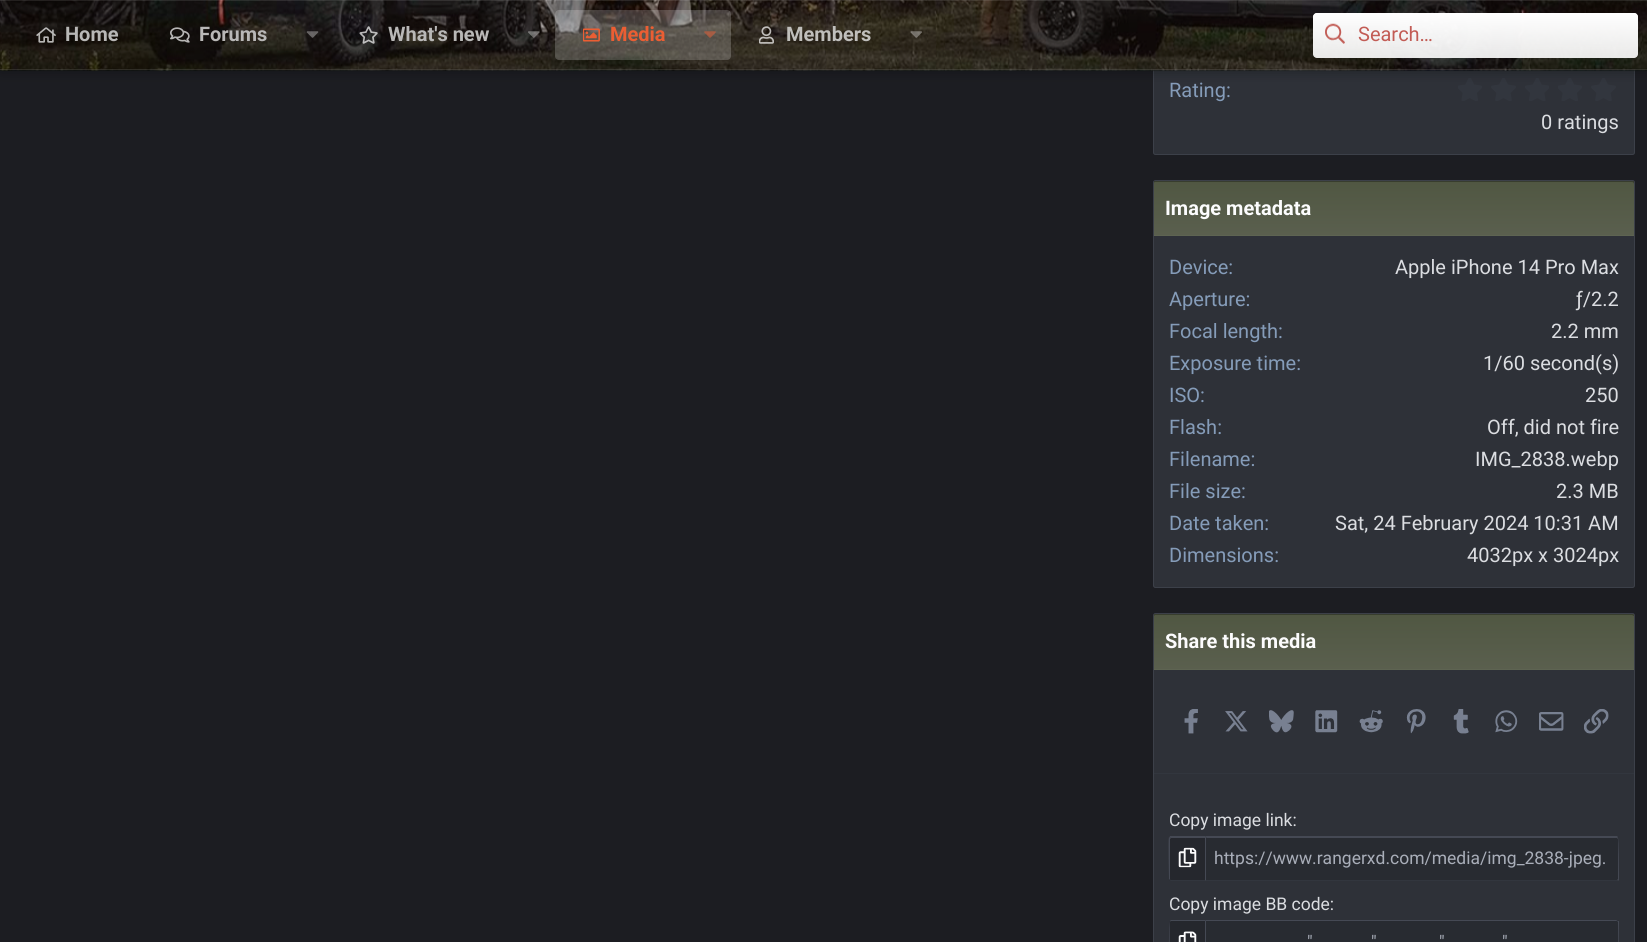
import math
import cairo

surface = cairo.ImageSurface(cairo.FORMAT_RGB24, 1647, 942)
c = cairo.Context(surface)
options = cairo.FontOptions()
options.set_hint_metrics(cairo.HINT_METRICS_OFF)
options.set_hint_style(cairo.HINT_STYLE_NONE)
c.set_font_options(options)
c.set_miter_limit(4)
def C(code):
 c.set_source_rgb(*(v / 255 for v in bytes.fromhex(code[-6:])))
def F(family, size, italic, bold):
 c.select_font_face(family, cairo.FONT_SLANT_ITALIC if italic else cairo.FONT_SLANT_NORMAL, cairo.FONT_WEIGHT_BOLD if bold else cairo.FONT_WEIGHT_NORMAL)
 c.set_font_size(size)
def T(x, y, s):
 c.move_to(x, y)
 c.show_text(s)
def R(x, y, w, h):
 c.rectangle(x, y, w, h)
 c.fill()
def Q(x, y, w, h, r):
 c.new_sub_path()
 for i, (u, v) in enumerate([(x + w - r, y + h - r), (x + r, y + h - r), (x + r, y + r), (x + w - r, y + r)]):
  c.arc(u, v, r, i * math.pi / 2, (i + 1) * math.pi / 2)
 c.close_path()
def S(x, y, w, h, r, blur, alpha):
 c.push_group_with_content(cairo.CONTENT_ALPHA)
 c.set_operator(cairo.OPERATOR_SOURCE)
 for i in range(15, -16, -2):
  e = blur * i / 6
  if min(w, h) + 2 * e > 0:
   c.set_source_rgba(0, 0, 0, alpha * math.erfc((i - 1) / 8.5) / 2)
   Q(x - e, y - e, w + 2 * e, h + 2 * e, max(0, min(r + e + blur * .6, min(w, h) / 2 + e)))
   c.fill()
 c.mask(c.pop_group())
def I(path, x, y, w, h):
 c.save()
 c.set_source_surface(cairo.ImageSurface.create_from_png(path), x, y)
 c.rectangle(x, y, w, h)
 c.fill()
 c.restore()
C('1c1d22')
c.paint()
C('2e3138')
Q(1153.5,-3.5,481,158,2)
c.fill_preserve()
C('3c4049')
c.set_line_width(1)
c.stroke()
I('12.png',1458,78,24,23)
I('13.png',1491,78,25,23)
I('14.png',1525,78,24,23)
I('12.png',1558,78,24,23)
I('13.png',1591,78,25,23)
C('000000')
S(0,-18,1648,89,0,6,.35)
I('1.png',0,0,1647,71)
c.set_source_rgba(0.886,0.353,0.059,0.05)
R(0,0,1647,70)
c.set_source_rgba(1,1,1,0.1)
R(0,0,1647,1)
R(0,69,1647,1)
I('2.png',36,27,20,16)
F('Roboto',20,0,1)
C('b9b8b7')
T(65,41,'Home')
I('3.png',170,27,20,16)
T(199,41,'Forums')
I('4.png',306,31,13,7)
I('5.png',359,26,19,18)
T(388,41,'What\'s new')
I('6.png',528,31,12,7)
c.set_source_rgba(1,1,1,0.2)
Q(555,10,176,50,4)
c.fill()
I('7.png',583,28,17,14)
C('eb5e33')
T(610,41,'Media')
I('8.png',704,31,12,7)
I('9.png',759,26,15,18)
C('c0bfbc')
T(786,41,'Members')
I('10.png',910,31,12,7)
c.set_source_rgba(1,1,1,0.9)
Q(1313,13,325,45,4)
c.fill()
gradient = cairo.LinearGradient(1475,12,1475,58)
gradient.add_color_stop_rgba(0,1,1,1,1)
gradient.add_color_stop_rgba(1,1,1,1,0)
c.set_source(gradient)
Q(1313,13,325,45,4)
c.fill()
I('11.png',1325,23,20,21)
F('Roboto',20,0,0)
C('c25c55')
T(1358,41,'Search…')
C('859cb9')
T(1169,97,'Rating:')
C('dbdde1')
T(1541,129,'0 ratings')
C('2e3138')
Q(1153.5,180.5,481,407,2)
c.fill_preserve()
C('3c4049')
c.stroke()
gradient = cairo.LinearGradient(1394,181,1394,235)
gradient.add_color_stop_rgba(0,0.314,0.341,0.259,1)
gradient.add_color_stop_rgba(1,0.353,0.373,0.306,1)
c.set_source(gradient)
c.new_path()
c.move_to(1155,181)
c.line_to(1633,181)
c.curve_to(1633.5,181,1634,181.5,1634,182)
c.line_to(1634,235)
c.line_to(1154,235)
c.line_to(1154,182)
c.curve_to(1154,181.5,1154.5,181,1155,181)
c.close_path()
c.fill()
c.set_source_rgba(0,0,0,0.3)
c.new_path()
c.move_to(1155,182)
c.line_to(1632,182)
c.curve_to(1633,182,1634,183,1634,184)
c.line_to(1634,182)
c.curve_to(1634,181,1634,181,1633,181)
c.line_to(1155,181)
c.curve_to(1154,181,1154,181,1154,182)
c.line_to(1154,184)
c.curve_to(1154,183,1154,182,1155,182)
c.close_path()
c.fill()
C('5e6452')
R(1154,235,480,1)
F('Roboto',20,0,1)
C('fcfcfd')
T(1165,215,'Image metadata')
F('Roboto',20,0,0)
C('859cb9')
T(1169,274,'Device:')
C('dbdde1')
T(1395,274,'Apple iPhone 14 Pro Max')
C('859cb9')
T(1169,306,'Aperture:')
C('dbdde1')
T(1576,306,'ƒ/2.2')
C('859cb9')
T(1169,338,'Focal length:')
C('dbdde1')
T(1551,338,'2.2 mm')
C('859cb9')
T(1169,370,'Exposure time:')
C('dbdde1')
T(1483,370,'1/60 second(s)')
C('859cb9')
T(1169,402,'ISO:')
C('dbdde1')
T(1585,402,'250')
C('859cb9')
T(1169,434,'Flash:')
C('dbdde1')
T(1487,434,'Off, did not fire')
C('859cb9')
T(1169,466,'Filename:')
C('dbdde1')
T(1475,466,'IMG_2838.webp')
C('859cb9')
T(1169,498,'File size:')
C('dbdde1')
T(1556,498,'2.3 MB')
C('859cb9')
T(1169,530,'Date taken:')
C('dbdde1')
T(1335,530,'Sat, 24 February 2024 10:31 AM')
C('859cb9')
T(1169,562,'Dimensions:')
C('dbdde1')
T(1467,562,'4032px x 3024px')
C('2e3138')
Q(1153.5,613.5,481,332,2)
c.fill_preserve()
C('3c4049')
c.stroke()
gradient = cairo.LinearGradient(1394,614,1394,669)
gradient.add_color_stop_rgba(0,0.314,0.341,0.259,1)
gradient.add_color_stop_rgba(1,0.353,0.373,0.306,1)
c.set_source(gradient)
c.new_path()
c.move_to(1155,614)
c.line_to(1633,614)
c.curve_to(1633.5,614,1634,614.5,1634,615)
c.line_to(1634,669)
c.line_to(1154,669)
c.line_to(1154,615)
c.curve_to(1154,614.5,1154.5,614,1155,614)
c.close_path()
c.fill()
c.set_source_rgba(0,0,0,0.3)
c.new_path()
c.move_to(1155,615)
c.line_to(1632,615)
c.line_to(1634,616)
c.line_to(1634,615)
c.line_to(1633,614)
c.line_to(1155,614)
c.curve_to(1154,614,1154,615,1154,616)
c.close_path()
c.fill()
C('5e6452')
R(1154,669,480,1)
F('Roboto',20,0,1)
C('fcfcfd')
T(1165,648,'Share this media')
I('15.png',1184,709,14,25)
I('16.png',1225,711,23,21)
I('17.png',1269,710,25,23)
I('18.png',1315,710,23,23)
I('19.png',1359,710,24,23)
I('20.png',1406,709,20,25)
I('21.png',1453,709,16,25)
I('22.png',1495,710,23,23)
I('23.png',1539,712,25,19)
I('24.png',1584,709,25,25)
C('32363e')
R(1154,773,480,1)
F('Roboto',17.5,0,0)
C('dbdde1')
T(1169,826,'Copy image link:')
C('25272d')
c.new_path()
c.move_to(1171.5,836)
c.line_to(1205,836)
c.line_to(1205,881)
c.line_to(1171.5,881)
c.curve_to(1170,881,1169,880,1169,878.5)
c.line_to(1169,838.5)
c.curve_to(1169,837,1170,836,1171.5,836)
c.close_path()
c.fill()
C('454954')
c.new_path()
c.move_to(1171,838)
c.line_to(1170.5,838)
c.line_to(1169.5,837)
c.line_to(1170,836)
c.line_to(1205,836)
c.line_to(1205,838)
c.close_path()
c.fill()
C('32363e')
c.new_path()
c.move_to(1205,881)
c.line_to(1205,880)
c.line_to(1171,880)
c.line_to(1170.5,879.5)
c.line_to(1169.5,880.5)
c.line_to(1171,881)
c.close_path()
c.fill()
C('454954')
c.new_path()
c.move_to(1170,880)
c.line_to(1169,879)
c.curve_to(1169,875,1168,839,1169,837)
c.line_to(1171,838)
c.line_to(1170,839)
c.line_to(1170,879)
c.close_path()
c.fill()
I('25.png',1178,847,19,21)
C('282b31')
c.new_path()
c.move_to(1205,836)
c.line_to(1616.5,836)
c.curve_to(1618,836,1619,837,1619,838.5)
c.line_to(1619,878.5)
c.curve_to(1619,880,1618,881,1616.5,881)
c.line_to(1205,881)
c.close_path()
c.fill()
C('454954')
c.new_path()
c.move_to(1205,836)
c.line_to(1617,836)
c.line_to(1618,837)
c.line_to(1617,838)
c.line_to(1207,838)
c.close_path()
c.fill()
c.new_path()
c.move_to(1619,880)
c.line_to(1618,881)
c.line_to(1617,880)
c.line_to(1618,879)
c.line_to(1618,839)
c.line_to(1617,838)
c.line_to(1618,837)
c.curve_to(1619,838,1619,875,1619,880)
c.close_path()
c.fill()
C('32363e')
c.new_path()
c.move_to(1618,881)
c.line_to(1616,881)
c.line_to(1205,881)
c.line_to(1206,880)
c.line_to(1616,880)
c.line_to(1617,880)
c.close_path()
c.fill()
C('454954')
c.new_path()
c.move_to(1206,838)
c.line_to(1207,838)
c.line_to(1205,836)
c.line_to(1205,881)
c.line_to(1206,880)
c.close_path()
c.fill()
C('a9aeb9')
T(1214,864,'https://www.rangerxd.com/media/img_2838-jpeg.')
C('dbdde1')
T(1169,910,'Copy image BB code:')
C('25272d')
c.new_path()
c.move_to(1171.5,920)
c.line_to(1205,920)
c.line_to(1205,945)
c.line_to(1171.5,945)
c.curve_to(1170,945,1169,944,1169,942.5)
c.line_to(1169,922.5)
c.curve_to(1169,921,1170,920,1171.5,920)
c.close_path()
c.fill()
C('454954')
c.new_path()
c.move_to(1171,920)
c.line_to(1205,920)
c.line_to(1205,921)
c.line_to(1171,921)
c.line_to(1170.5,921.5)
c.line_to(1169.5,921)
c.close_path()
c.fill()
c.new_path()
c.move_to(1170,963)
c.line_to(1170,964)
c.curve_to(1168,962,1169,922,1170,921)
c.line_to(1170,922)
c.curve_to(1170,927,1169,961,1170,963)
c.close_path()
c.fill()
I('26.png',1178,931,19,11)
C('282b31')
c.new_path()
c.move_to(1205,920)
c.line_to(1616.5,920)
c.curve_to(1618,920,1619,921,1619,922.5)
c.line_to(1619,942.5)
c.curve_to(1619,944,1618,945,1616.5,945)
c.line_to(1205,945)
c.close_path()
c.fill()
C('454954')
c.new_path()
c.move_to(1205,920)
c.line_to(1206,921)
c.line_to(1616,921)
c.line_to(1617,921)
c.line_to(1618,921)
c.line_to(1616,920)
c.close_path()
c.fill()
c.new_path()
c.move_to(1619,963)
c.line_to(1618,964)
c.line_to(1617,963)
c.curve_to(1619,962,1618,927,1618,922)
c.line_to(1617,921)
c.line_to(1618,921)
c.line_to(1619,921)
c.close_path()
c.fill()
c.new_path()
c.move_to(1205,920)
c.line_to(1205,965)
c.line_to(1206,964)
c.line_to(1206,921)
c.close_path()
c.fill()
C('a9aeb9')
T(1307,948,'"')
T(1371,948,'"')
T(1439,948,'"')
T(1502,948,'"')
surface.write_to_png('o.png')
